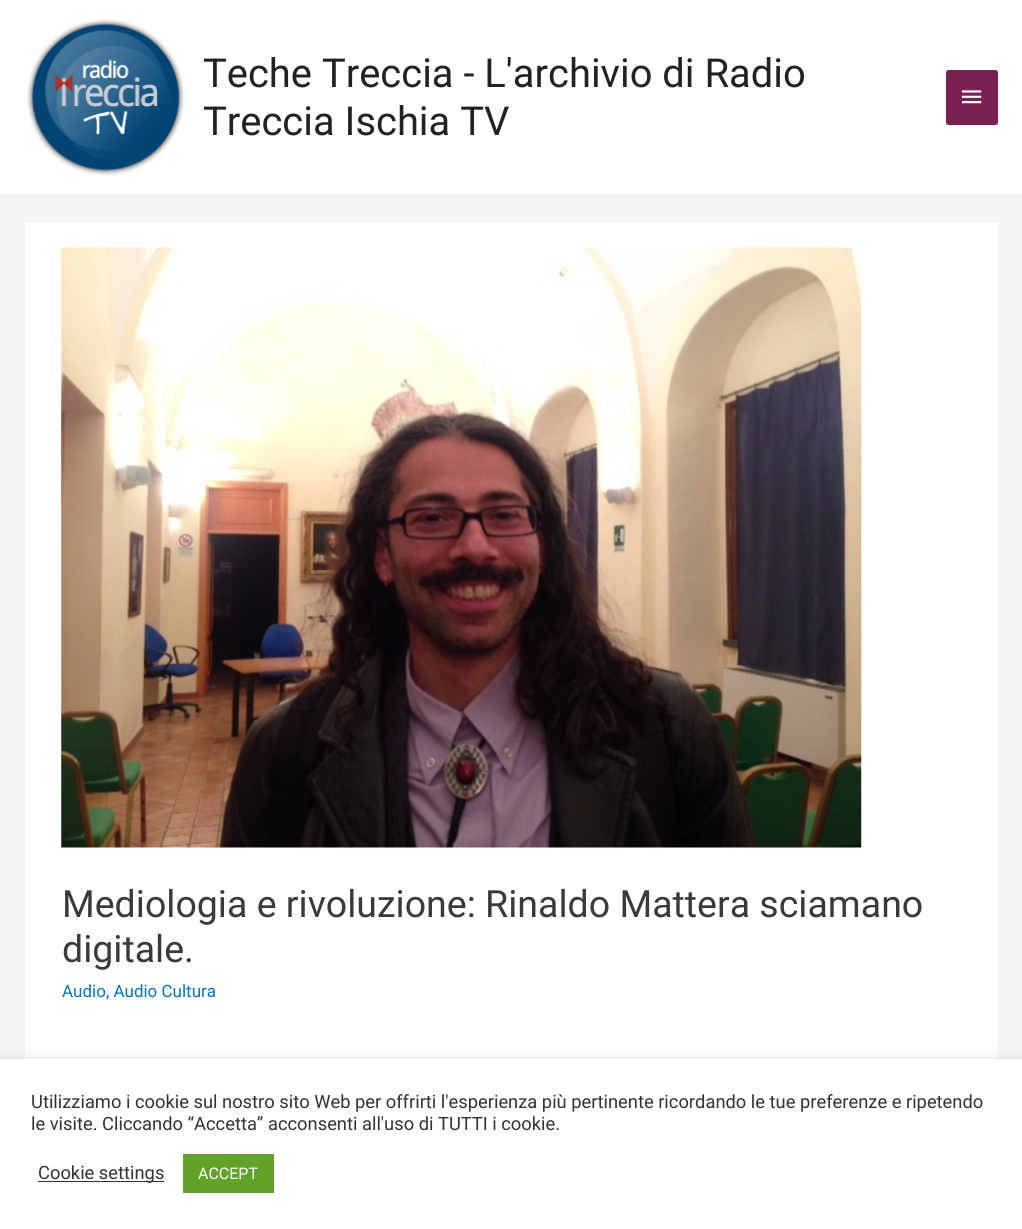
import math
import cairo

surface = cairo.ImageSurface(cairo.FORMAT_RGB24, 1022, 1229)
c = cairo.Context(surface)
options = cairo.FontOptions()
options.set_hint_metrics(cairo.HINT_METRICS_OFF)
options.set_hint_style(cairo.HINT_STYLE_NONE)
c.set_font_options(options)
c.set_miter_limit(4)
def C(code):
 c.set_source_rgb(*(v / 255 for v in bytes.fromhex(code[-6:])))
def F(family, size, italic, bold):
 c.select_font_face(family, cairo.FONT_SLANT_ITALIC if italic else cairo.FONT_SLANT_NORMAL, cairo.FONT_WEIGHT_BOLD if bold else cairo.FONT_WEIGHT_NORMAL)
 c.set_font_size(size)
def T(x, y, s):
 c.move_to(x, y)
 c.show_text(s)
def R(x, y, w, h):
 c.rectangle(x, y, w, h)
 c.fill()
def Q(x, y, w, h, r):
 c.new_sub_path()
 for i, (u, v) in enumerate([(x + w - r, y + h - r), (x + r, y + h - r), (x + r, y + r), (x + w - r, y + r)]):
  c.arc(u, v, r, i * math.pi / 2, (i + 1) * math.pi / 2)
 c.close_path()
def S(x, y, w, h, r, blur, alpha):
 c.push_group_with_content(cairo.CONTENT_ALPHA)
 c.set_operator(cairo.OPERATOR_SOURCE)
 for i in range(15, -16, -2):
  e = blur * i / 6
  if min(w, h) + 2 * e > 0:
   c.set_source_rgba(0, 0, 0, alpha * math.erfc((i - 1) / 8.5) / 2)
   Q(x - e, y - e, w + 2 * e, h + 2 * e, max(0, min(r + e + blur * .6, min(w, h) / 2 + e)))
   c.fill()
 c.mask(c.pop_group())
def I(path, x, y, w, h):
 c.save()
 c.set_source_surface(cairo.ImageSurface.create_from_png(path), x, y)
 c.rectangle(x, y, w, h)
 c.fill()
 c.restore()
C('f5f5f5')
c.paint()
C('eaeaea')
R(0,195,1022,1)
C('ffffff')
R(0,0,1022,195)
I('1.png',27,19,158,157)
F('Roboto',39.9,0,0)
C('222222')
T(203,87,'Teche Treccia - L\'archivio di Radio')
T(203,135,'Treccia Ischia TV')
C('7b2152')
Q(946,70,52,55,2.5)
c.fill()
I('2.png',961,90,21,14)
C('ffffff')
R(25,223,973,836)
I('3.png',61,247,801,601)
F('Roboto',37.5,0,0)
C('3a3a3a')
T(62,917,'Mediologia e rivoluzione: Rinaldo Mattera sciamano')
T(62,962,'digitale.')
F('Roboto',17,0,0)
C('0274be')
T(62,997,'Audio, Audio Cultura')
C('acabab')
S(0,1058,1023,171,0,6,.3)
C('ffffff')
R(0,1059,1022,170)
F('Roboto',18.33,0,0)
C('333333')
T(31,1108,'Utilizziamo i cookie sul nostro sito Web per offrirti l\'esperienza più pertinente ricordando le tue preferenze e ripetendo')
T(31,1130,'le visite. Cliccando “Accetta” acconsenti all\'uso di TUTTI i cookie.')
R(38,1181,126,1)
T(38,1179,'Cookie settings')
C('61a229')
R(183,1154,91,39)
F('Roboto',16,0,0)
C('ffffff')
T(198,1179,'ACCEPT')
surface.write_to_png('o.png')
